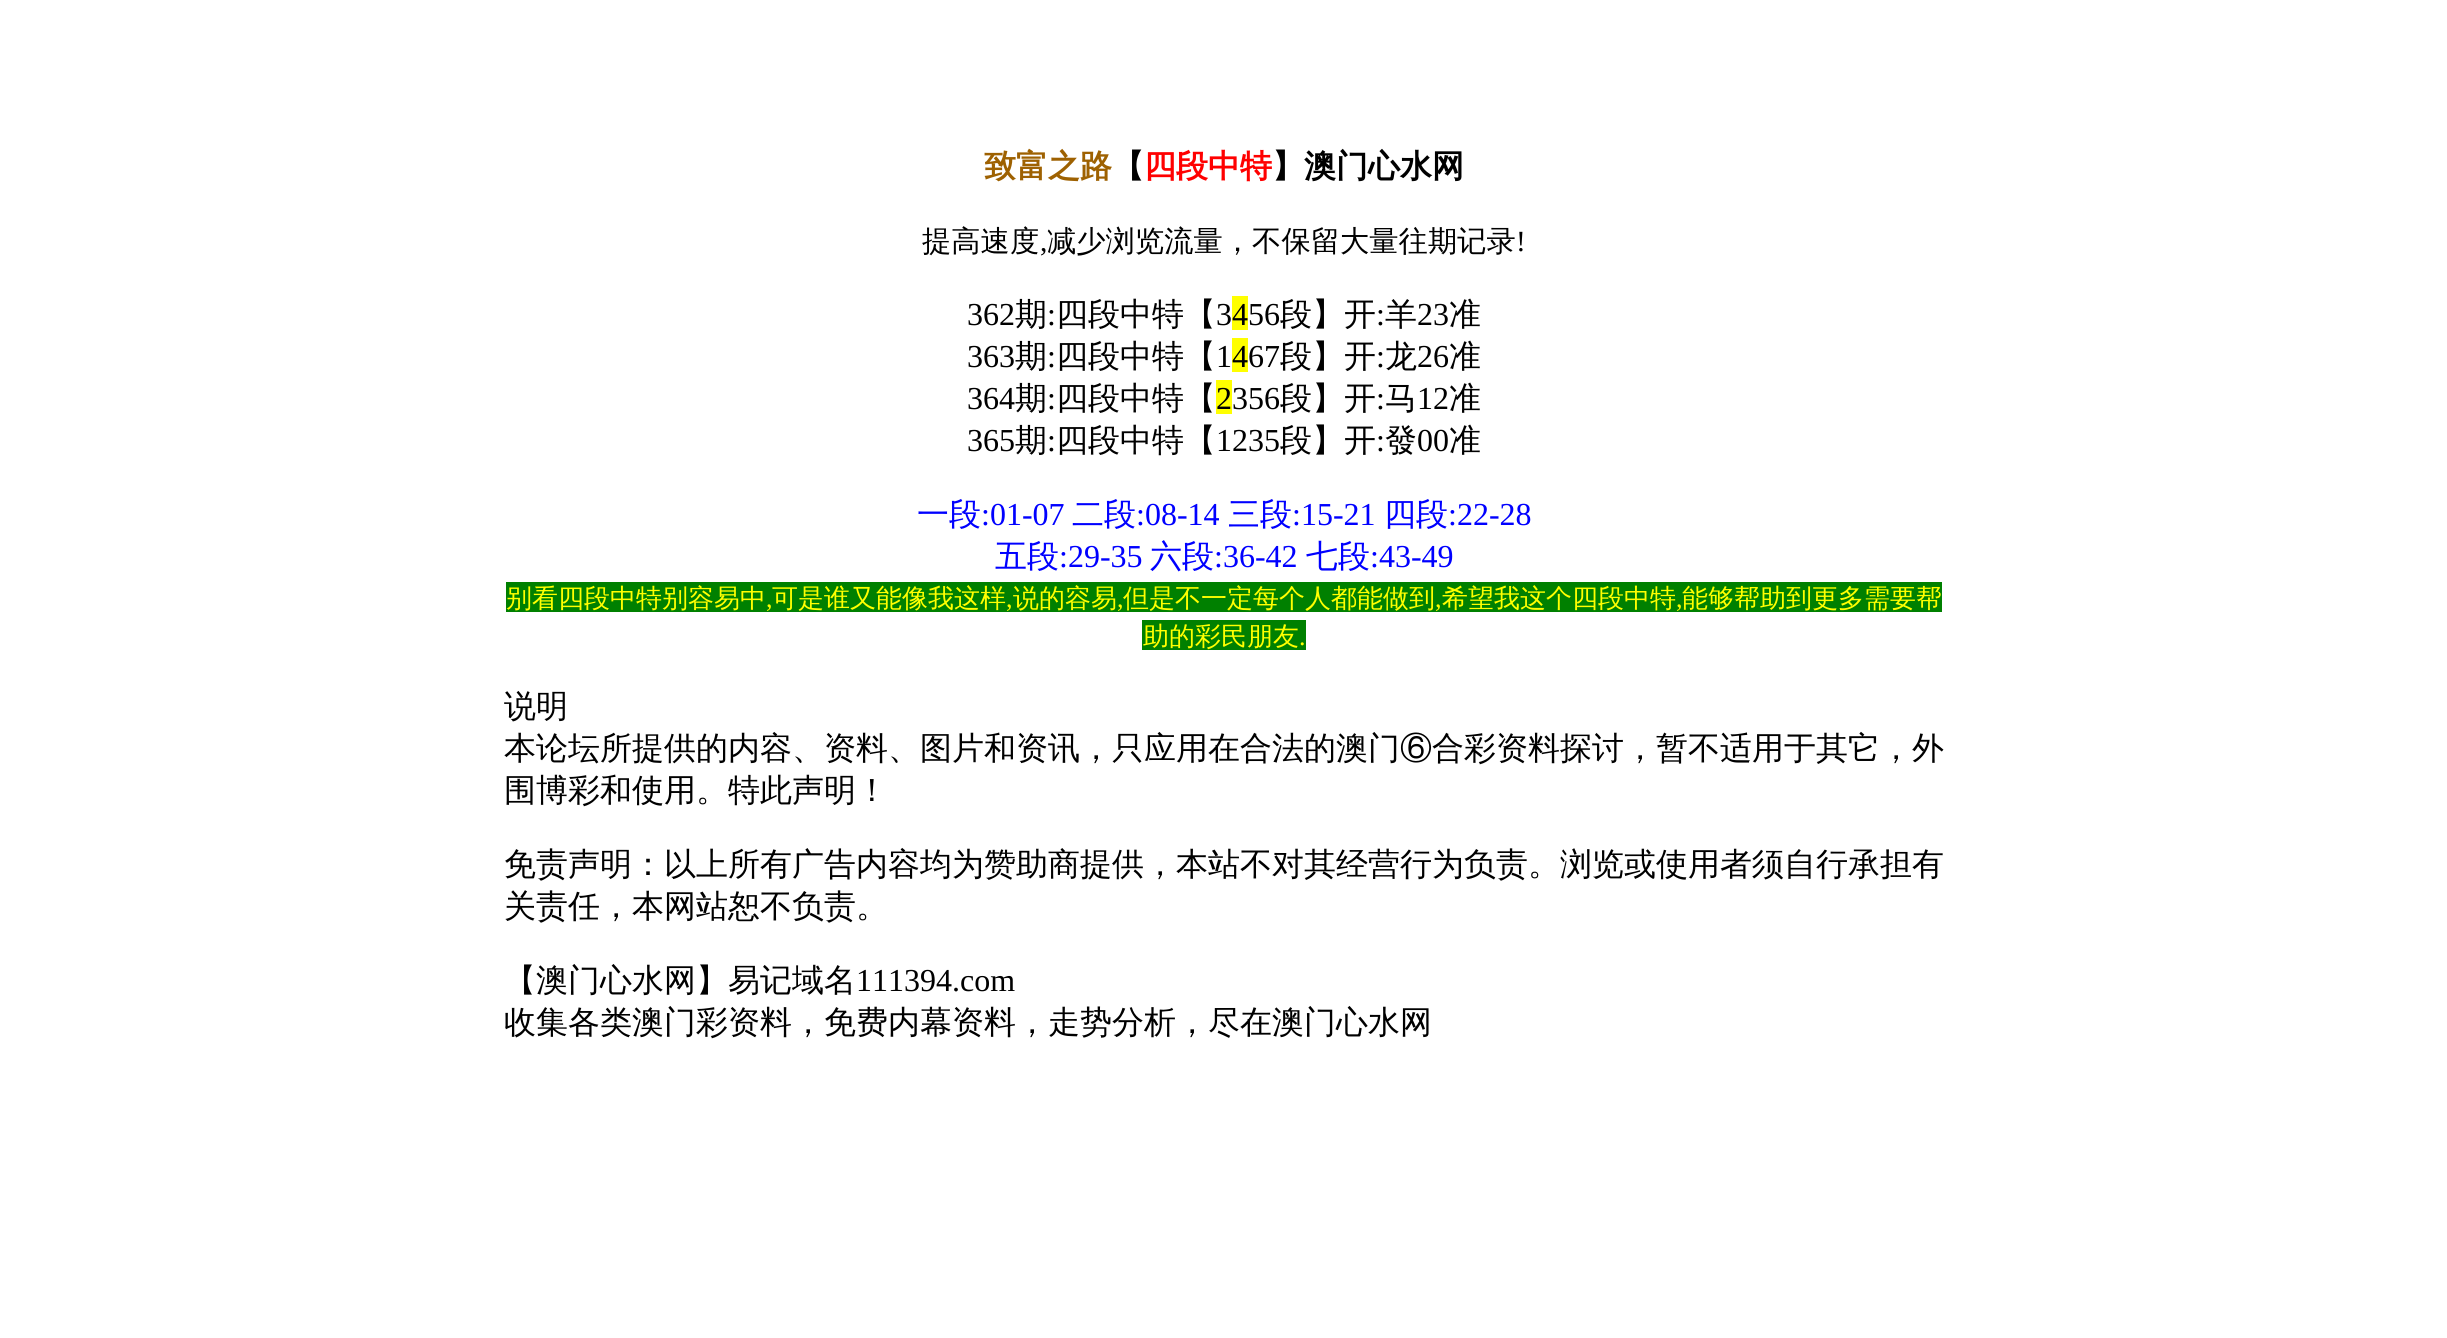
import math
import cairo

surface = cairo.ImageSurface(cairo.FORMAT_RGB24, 2447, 1338)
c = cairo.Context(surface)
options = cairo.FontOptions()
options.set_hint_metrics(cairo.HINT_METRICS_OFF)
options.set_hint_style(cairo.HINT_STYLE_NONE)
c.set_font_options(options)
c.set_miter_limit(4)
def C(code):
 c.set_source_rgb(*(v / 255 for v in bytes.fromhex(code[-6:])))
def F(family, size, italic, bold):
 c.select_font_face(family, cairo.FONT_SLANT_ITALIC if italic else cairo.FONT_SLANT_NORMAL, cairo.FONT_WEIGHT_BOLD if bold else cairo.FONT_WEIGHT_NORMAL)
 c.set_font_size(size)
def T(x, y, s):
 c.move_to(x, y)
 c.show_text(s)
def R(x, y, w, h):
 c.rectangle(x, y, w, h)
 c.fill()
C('ffffff')
c.paint()
F('WenQuanYi Zen Hei',32,0,1)
C('9e6101')
T(984,177,'致富之路')
C('000000')
T(1112,177,'【')
C('ff0000')
T(1144,177,'四段中特')
C('000000')
T(1272,177,'】澳门心水网')
F('WenQuanYi Zen Hei Medium',29.3,0,0)
T(922,251,'提高速度')
F('Liberation Serif',29.3,0,0)
T(1040,251,',')
F('WenQuanYi Zen Hei Medium',29.3,0,0)
T(1047,251,'减少浏览流量，不保留大量往期记录')
F('Liberation Serif',29.3,0,0)
T(1516,251,'!')
F('Liberation Serif',32,0,0)
T(967,325,'362')
F('WenQuanYi Zen Hei Medium',32,0,0)
T(1015,325,'期')
F('Liberation Serif',32,0,0)
T(1047,325,':')
F('WenQuanYi Zen Hei Medium',32,0,0)
T(1056,325,'四段中特【')
F('Liberation Serif',32,0,0)
T(1216,325,'3')
C('ffff00')
R(1232,296,16,34)
C('000000')
T(1232,325,'456')
F('WenQuanYi Zen Hei Medium',32,0,0)
T(1280,325,'段】开')
F('Liberation Serif',32,0,0)
T(1376,325,':')
F('WenQuanYi Zen Hei Medium',32,0,0)
T(1385,325,'羊')
F('Liberation Serif',32,0,0)
T(1417,325,'23')
F('WenQuanYi Zen Hei Medium',32,0,0)
T(1449,325,'准')
F('Liberation Serif',32,0,0)
T(967,367,'363')
F('WenQuanYi Zen Hei Medium',32,0,0)
T(1015,367,'期')
F('Liberation Serif',32,0,0)
T(1047,367,':')
F('WenQuanYi Zen Hei Medium',32,0,0)
T(1056,367,'四段中特【')
F('Liberation Serif',32,0,0)
T(1216,367,'1')
C('ffff00')
R(1232,338,16,34)
C('000000')
T(1232,367,'467')
F('WenQuanYi Zen Hei Medium',32,0,0)
T(1280,367,'段】开')
F('Liberation Serif',32,0,0)
T(1376,367,':')
F('WenQuanYi Zen Hei Medium',32,0,0)
T(1385,367,'龙')
F('Liberation Serif',32,0,0)
T(1417,367,'26')
F('WenQuanYi Zen Hei Medium',32,0,0)
T(1449,367,'准')
F('Liberation Serif',32,0,0)
T(967,409,'364')
F('WenQuanYi Zen Hei Medium',32,0,0)
T(1015,409,'期')
F('Liberation Serif',32,0,0)
T(1047,409,':')
F('WenQuanYi Zen Hei Medium',32,0,0)
T(1056,409,'四段中特【')
C('ffff00')
R(1216,380,16,34)
F('Liberation Serif',32,0,0)
C('000000')
T(1216,409,'2356')
F('WenQuanYi Zen Hei Medium',32,0,0)
T(1280,409,'段】开')
F('Liberation Serif',32,0,0)
T(1376,409,':')
F('WenQuanYi Zen Hei Medium',32,0,0)
T(1385,409,'马')
F('Liberation Serif',32,0,0)
T(1417,409,'12')
F('WenQuanYi Zen Hei Medium',32,0,0)
T(1449,409,'准')
F('Liberation Serif',32,0,0)
T(967,451,'365')
F('WenQuanYi Zen Hei Medium',32,0,0)
T(1015,451,'期')
F('Liberation Serif',32,0,0)
T(1047,451,':')
F('WenQuanYi Zen Hei Medium',32,0,0)
T(1056,451,'四段中特【')
F('Liberation Serif',32,0,0)
T(1216,451,'1235')
F('WenQuanYi Zen Hei Medium',32,0,0)
T(1280,451,'段】开')
F('Liberation Serif',32,0,0)
T(1376,451,':')
F('WenQuanYi Zen Hei Medium',32,0,0)
T(1385,451,'發')
F('Liberation Serif',32,0,0)
T(1417,451,'00')
F('WenQuanYi Zen Hei Medium',32,0,0)
T(1449,451,'准')
C('0000ff')
T(917,525,'一段')
F('Liberation Serif',32,0,0)
T(981,525,':01-07')
F('WenQuanYi Zen Hei Medium',32,0,0)
T(1072,525,'二段')
F('Liberation Serif',32,0,0)
T(1136,525,':08-14')
F('WenQuanYi Zen Hei Medium',32,0,0)
T(1228,525,'三段')
F('Liberation Serif',32,0,0)
T(1292,525,':15-21')
F('WenQuanYi Zen Hei Medium',32,0,0)
T(1384,525,'四段')
F('Liberation Serif',32,0,0)
T(1448,525,':22-28')
F('WenQuanYi Zen Hei Medium',32,0,0)
T(995,567,'五段')
F('Liberation Serif',32,0,0)
T(1059,567,':29-35')
F('WenQuanYi Zen Hei Medium',32,0,0)
T(1150,567,'六段')
F('Liberation Serif',32,0,0)
T(1214,567,':36-42')
F('WenQuanYi Zen Hei Medium',32,0,0)
T(1306,567,'七段')
F('Liberation Serif',32,0,0)
T(1370,567,':43-49')
C('008000')
R(506,582,1436,30)
F('WenQuanYi Zen Hei Medium',26,0,0)
C('ffff00')
T(506,607,'别看四段中特别容易中')
F('Liberation Serif',26,0,0)
T(766,607,',')
F('WenQuanYi Zen Hei Medium',26,0,0)
T(772,607,'可是谁又能像我这样')
F('Liberation Serif',26,0,0)
T(1006,607,',')
F('WenQuanYi Zen Hei Medium',26,0,0)
T(1013,607,'说的容易')
F('Liberation Serif',26,0,0)
T(1117,607,',')
F('WenQuanYi Zen Hei Medium',26,0,0)
T(1123,607,'但是不一定每个人都能做到')
F('Liberation Serif',26,0,0)
T(1435,607,',')
F('WenQuanYi Zen Hei Medium',26,0,0)
T(1442,607,'希望我这个四段中特')
F('Liberation Serif',26,0,0)
T(1676,607,',')
F('WenQuanYi Zen Hei Medium',26,0,0)
T(1682,607,'能够帮助到更多需要帮')
C('008000')
R(1142,620,164,30)
C('ffff00')
T(1143,645,'助的彩民朋友')
F('Liberation Serif',26,0,0)
T(1299,645,'.')
F('WenQuanYi Zen Hei Medium',32,0,0)
C('000000')
T(504,717,'说明')
T(504,759,'本论坛所提供的内容、资料、图片和资讯，只应用在合法的澳门⑥合彩资料探讨，暂不适用于其它，外')
T(504,801,'围博彩和使用。特此声明！')
T(504,875,'免责声明：以上所有广告内容均为赞助商提供，本站不对其经营行为负责。浏览或使用者须自行承担有')
T(504,917,'关责任，本网站恕不负责。')
T(504,991,'【澳门心水网】易记域名')
F('Liberation Serif',32,0,0)
T(856,991,'111394.com')
F('WenQuanYi Zen Hei Medium',32,0,0)
T(504,1033,'收集各类澳门彩资料，免费内幕资料，走势分析，尽在澳门心水网')
surface.write_to_png('o.png')
